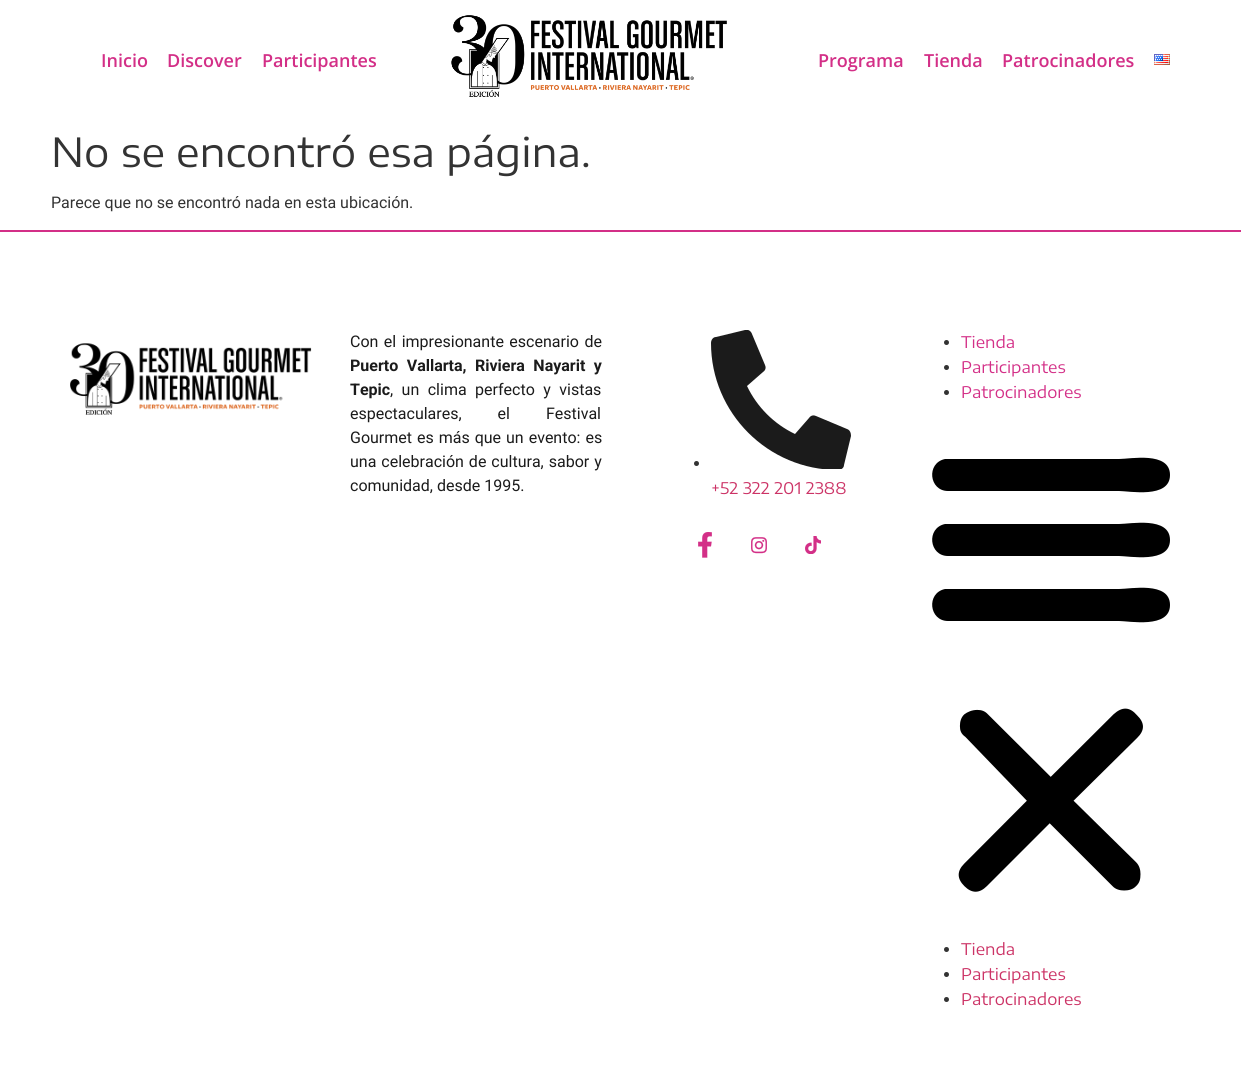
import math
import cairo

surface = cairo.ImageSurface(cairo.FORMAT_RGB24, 1241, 1068)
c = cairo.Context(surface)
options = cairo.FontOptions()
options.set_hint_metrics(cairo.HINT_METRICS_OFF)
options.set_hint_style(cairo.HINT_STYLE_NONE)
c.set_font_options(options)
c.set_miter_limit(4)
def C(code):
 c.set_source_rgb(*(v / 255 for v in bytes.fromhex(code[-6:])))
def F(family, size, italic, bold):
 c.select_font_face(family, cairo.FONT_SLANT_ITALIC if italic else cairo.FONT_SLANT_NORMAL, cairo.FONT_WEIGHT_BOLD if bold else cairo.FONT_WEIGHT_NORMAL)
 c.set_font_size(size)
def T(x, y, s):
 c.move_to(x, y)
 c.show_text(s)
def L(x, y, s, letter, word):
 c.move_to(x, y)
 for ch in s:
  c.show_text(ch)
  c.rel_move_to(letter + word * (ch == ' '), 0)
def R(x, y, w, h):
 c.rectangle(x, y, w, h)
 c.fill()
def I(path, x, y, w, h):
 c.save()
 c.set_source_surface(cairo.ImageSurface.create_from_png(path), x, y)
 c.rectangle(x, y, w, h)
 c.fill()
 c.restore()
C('ffffff')
c.paint()
F('Open Sans SemiBold',18,0,0)
C('d32f87')
T(101,67,'Inicio')
T(167,67,'Discover')
T(262,67,'Participantes')
I('1.png',451,15,276,82)
T(818,67,'Programa')
T(924,67,'Tienda')
T(1002,67,'Patrocinadores')
I('2.png',1154,54,16,11)
F('Encode Sans Expanded',40,0,0)
C('333333')
T(51,167,'No se encontró esa página.')
F('Roboto',16,0,0)
T(51,208,'Parece que no se encontró nada en esta ubicación.')
C('d32f87')
R(0,230,1241,2)
I('3.png',70,343,242,72)
C('1b1b1b')
L(350,347,'Con el impresionante escenario de',0,1.5)
F('Roboto',16,0,1)
L(350,371,'Puerto Vallarta, Riviera Nayarit y',0,4.5)
T(350,395,'Tepic')
F('Roboto',16,0,0)
L(390,395,', un clima perfecto y vistas',0,4.5)
L(350,419,'espectaculares, el Festival',0,32)
L(350,443,'Gourmet es más que un evento: es',0,1)
L(350,467,'una celebración de cultura, sabor y',0,1)
T(350,491,'comunidad, desde 1995.')
C('333333')
c.new_path()
c.arc(946.5,342.5,2.5,0,2 * math.pi)
c.fill()
F('Encode Sans Expanded',16,0,0)
C('d32f87')
T(961,348,'Tienda')
C('333333')
c.new_path()
c.arc(946.5,367.5,2.5,0,2 * math.pi)
c.fill()
C('d32f87')
T(961,373,'Participantes')
C('333333')
c.new_path()
c.arc(946.5,392.5,2.5,0,2 * math.pi)
c.fill()
C('d32f87')
T(961,398,'Patrocinadores')
C('000000')
c.new_path()
c.move_to(948,491)
c.line_to(1119,491)
c.curve_to(1129,491,1170,499,1170,475)
c.curve_to(1170,451,1130,459,1119,459)
c.line_to(945,459)
c.curve_to(926,463,929,491,948,491)
c.close_path()
c.move_to(948,556)
c.line_to(1119,556)
c.curve_to(1129,556,1170,564,1170,540)
c.curve_to(1170,516,1130,524,1119,524)
c.line_to(945,524)
c.curve_to(926,528,929,556,948,556)
c.close_path()
c.move_to(948,621)
c.line_to(1119,621)
c.curve_to(1129,621,1170,629,1170,605)
c.curve_to(1170,581,1130,589,1119,589)
c.line_to(945,589)
c.curve_to(926,593,929,621,948,621)
c.close_path()
c.fill()
I('4.png',958,708,185,184)
C('333333')
c.arc(946.5,949.5,2.5,0,2 * math.pi)
c.fill()
C('cc3366')
T(961,955,'Tienda')
C('333333')
c.new_path()
c.arc(946.5,974.5,2.5,0,2 * math.pi)
c.fill()
C('cc3366')
T(961,980,'Participantes')
C('333333')
c.new_path()
c.arc(946.5,999.5,2.5,0,2 * math.pi)
c.fill()
C('cc3366')
T(961,1005,'Patrocinadores')
C('333333')
c.new_path()
c.arc(696.5,463.5,2.5,0,2 * math.pi)
c.fill()
C('cc3366')
T(711,494,'+52 322 201 2388')
c.save()
c.rectangle(711,330,140,139)
c.clip()
C('1b1b1b')
c.new_path()
c.move_to(847,429)
c.line_to(816,416)
c.curve_to(814,415,811,415,809,418)
c.line_to(795,434)
c.curve_to(774,424,757,407,747,386)
c.line_to(763,372)
c.curve_to(766,370,766,367,765,365)
c.line_to(752,334)
c.curve_to(751,331,748,329,745,330)
c.line_to(716,337)
c.curve_to(713,337,711,340,711,343)
c.curve_to(711,413,768,470,838,470)
c.curve_to(841,470,844,468,844,465)
c.line_to(851,436)
c.curve_to(851,433,850,430,847,429)
c.close_path()
c.fill()
c.restore()
I('5.png',698,532,14,26)
I('6.png',751,537,16,17)
I('7.png',805,536,16,18)
surface.write_to_png('o.png')
